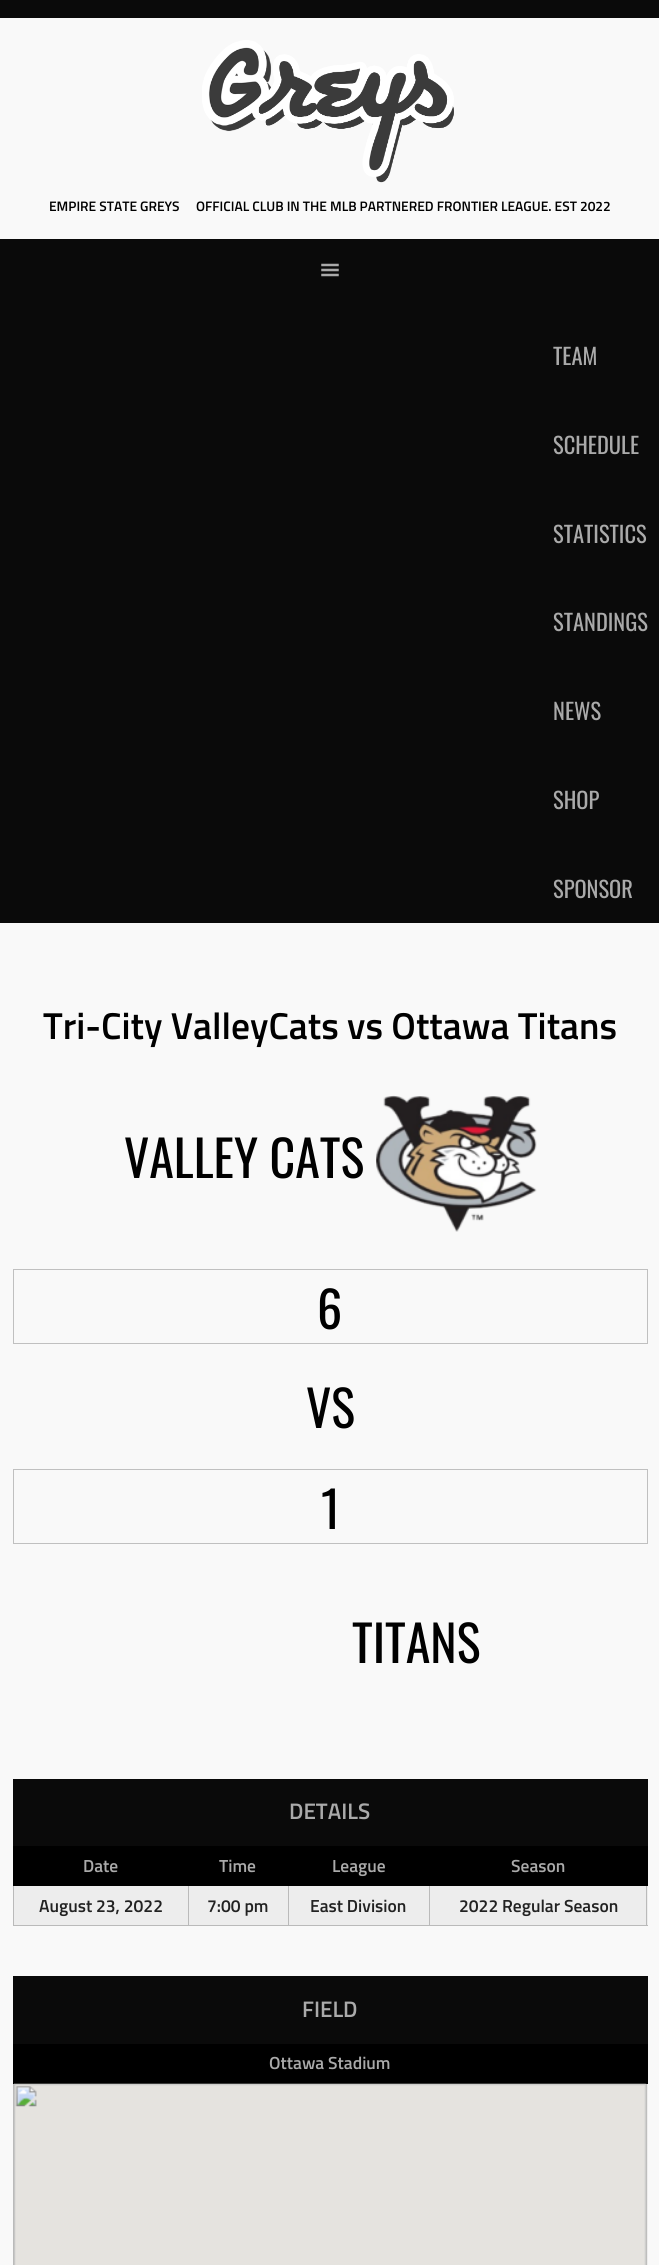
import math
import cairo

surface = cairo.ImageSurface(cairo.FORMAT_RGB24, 659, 2265)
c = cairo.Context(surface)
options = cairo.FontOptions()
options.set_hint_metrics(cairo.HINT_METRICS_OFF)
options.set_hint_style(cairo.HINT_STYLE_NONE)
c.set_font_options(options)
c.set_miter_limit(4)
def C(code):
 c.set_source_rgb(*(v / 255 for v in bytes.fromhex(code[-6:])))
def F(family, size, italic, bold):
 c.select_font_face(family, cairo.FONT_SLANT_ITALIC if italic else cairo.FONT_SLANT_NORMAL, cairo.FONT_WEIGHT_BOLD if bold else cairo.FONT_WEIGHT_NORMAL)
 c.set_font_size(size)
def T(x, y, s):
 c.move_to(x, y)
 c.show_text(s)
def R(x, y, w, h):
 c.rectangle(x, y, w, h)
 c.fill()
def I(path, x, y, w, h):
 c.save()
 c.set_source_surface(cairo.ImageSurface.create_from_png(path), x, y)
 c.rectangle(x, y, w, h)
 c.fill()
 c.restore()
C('f9f9f9')
c.paint()
C('0a0a0a')
R(0,0,659,923)
C('f9f9f9')
R(0,18,659,221)
I('1.png',202,40,252,143)
F('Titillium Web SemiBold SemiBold',13.75,0,0)
C('000000')
T(49,211,'EMPIRE STATE GREYS')
T(196,211,'OFFICIAL CLUB IN THE MLB PARTNERED FRONTIER LEAGUE. EST 2022')
I('2.png',321,263,18,14)
F('Oswald',22.5,0,0)
C('aaaaaa')
T(553,365,'TEAM')
T(553,454,'SCHEDULE')
T(553,543,'STATISTICS')
T(553,631,'STANDINGS')
T(553,720,'NEWS')
T(553,809,'SHOP')
T(553,898,'SPONSOR')
F('Titillium Web SemiBold SemiBold',37.5,0,0)
C('000000')
T(43,1039,'Tri-City ValleyCats vs Ottawa Titans')
F('Oswald',50,0,0)
T(124,1178,'VALLEY CATS')
I('3.png',376,1095,161,137)
c.rectangle(13.5,1269.5,634,74)
C('c0c0c0')
c.set_line_width(1)
c.stroke()
C('000000')
T(317,1329,'6')
T(306,1428,'VS')
c.rectangle(13.5,1469.5,634,74)
C('c0c0c0')
c.stroke()
C('000000')
T(321,1529,'1')
T(352,1663,'TITANS')
R(13,1885,635,1)
C('bababa')
R(13,1925,635,1)
R(13,1885,1,41)
C('000000')
R(13,1845,1,41)
R(14,1846,634,39)
C('ededed')
R(14,1886,634,39)
C('bababa')
R(188,1885,1,41)
C('000000')
R(188,1845,1,41)
C('bababa')
R(288,1885,1,41)
C('000000')
R(288,1845,1,41)
C('bababa')
R(646,1885,1,41)
C('000000')
R(646,1845,1,41)
C('bababa')
R(429,1885,1,41)
C('000000')
R(429,1845,1,41)
C('0a0a0a')
R(13,1779,635,67)
F('Titillium Web SemiBold SemiBold',22.5,0,0)
C('aaaaaa')
T(289,1819,'DETAILS')
F('Titillium Web SemiBold SemiBold',17.5,0,0)
T(83,1872,'Date')
T(219,1872,'Time')
T(332,1872,'League')
T(511,1872,'Season')
C('222222')
T(39,1912,'August 23, 2022')
T(207,1912,'7:00 pm')
T(310,1912,'East Division')
T(459,1912,'2022 Regular Season')
C('000000')
R(14,2044,634,39)
R(13,2083,635,1)
C('bababa')
R(646,2083,1,182)
C('000000')
R(646,2043,1,41)
C('bababa')
R(13,2083,1,182)
C('000000')
R(13,2043,1,41)
C('0a0a0a')
R(13,1976,635,68)
F('Titillium Web SemiBold SemiBold',22.5,0,0)
C('aaaaaa')
T(302,2017,'FIELD')
F('Titillium Web SemiBold SemiBold',17.5,0,0)
T(269,2069,'Ottawa Stadium')
C('ededed')
R(647,2084,1,181)
I('4.png',14,2083,633,182)
surface.write_to_png('o.png')
